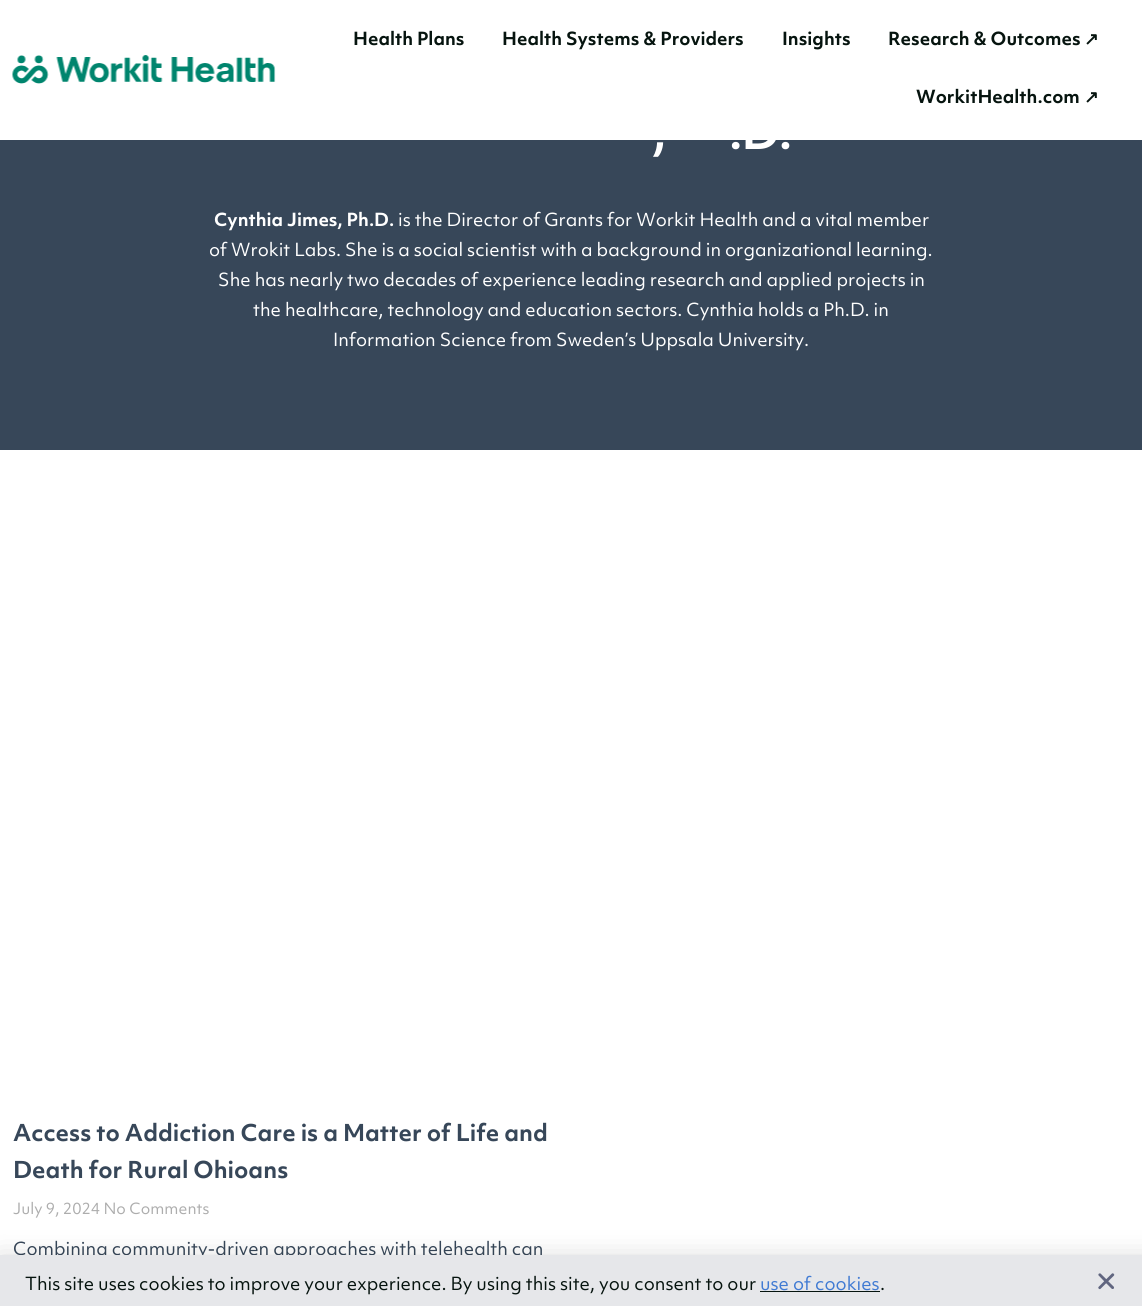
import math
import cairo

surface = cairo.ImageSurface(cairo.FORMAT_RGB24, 1142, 1306)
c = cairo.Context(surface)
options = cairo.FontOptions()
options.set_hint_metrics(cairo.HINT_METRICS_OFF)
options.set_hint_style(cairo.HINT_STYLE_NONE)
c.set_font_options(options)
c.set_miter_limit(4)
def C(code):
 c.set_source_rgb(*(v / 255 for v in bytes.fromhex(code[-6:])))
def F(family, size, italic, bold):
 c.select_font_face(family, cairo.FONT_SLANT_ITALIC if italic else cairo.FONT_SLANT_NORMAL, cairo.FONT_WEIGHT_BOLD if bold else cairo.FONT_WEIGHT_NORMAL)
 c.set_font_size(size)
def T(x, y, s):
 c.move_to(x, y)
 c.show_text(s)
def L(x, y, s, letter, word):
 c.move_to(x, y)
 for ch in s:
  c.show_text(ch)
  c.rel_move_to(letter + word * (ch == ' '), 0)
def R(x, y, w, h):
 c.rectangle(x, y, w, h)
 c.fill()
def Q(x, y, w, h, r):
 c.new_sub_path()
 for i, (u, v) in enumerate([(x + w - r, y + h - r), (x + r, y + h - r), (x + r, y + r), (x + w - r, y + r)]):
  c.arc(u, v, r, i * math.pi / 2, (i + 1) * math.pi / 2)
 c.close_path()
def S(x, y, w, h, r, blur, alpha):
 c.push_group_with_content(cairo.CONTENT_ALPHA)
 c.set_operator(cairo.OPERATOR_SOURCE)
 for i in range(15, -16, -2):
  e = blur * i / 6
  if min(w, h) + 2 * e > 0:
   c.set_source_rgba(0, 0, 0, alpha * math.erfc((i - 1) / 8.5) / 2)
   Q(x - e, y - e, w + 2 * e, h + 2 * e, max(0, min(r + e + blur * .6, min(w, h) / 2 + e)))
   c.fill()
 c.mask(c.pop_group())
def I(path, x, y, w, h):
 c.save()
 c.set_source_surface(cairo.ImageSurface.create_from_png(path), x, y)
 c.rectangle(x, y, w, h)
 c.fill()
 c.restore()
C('ffffff')
c.paint()
I('1.png',12,55,264,29)
F('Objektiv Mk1',17.5,0,1)
C('06140f')
T(353,45,'Health Plans')
T(502,45,'Health Systems & Providers')
T(782,45,'Insights')
T(888,45,'Research & Outcomes')
F('DejaVu Sans',17.5,0,1)
T(1084,45,'↗')
F('Objektiv Mk1',17.5,0,1)
T(916,103,'WorkitHealth.com')
F('DejaVu Sans',17.5,0,1)
T(1084,103,'↗')
C('374759')
R(0,140,1142,310)
F('Objektiv Mk1',45,0,1)
C('ffffff')
L(653,149,',',-1,0)
L(729,149,'.D.',-1,0)
F('Objektiv Mk1',17.5,0,1)
T(214,226,'Cynthia Jimes, Ph.D.')
F('Objektiv Mk1',17.5,0,0)
T(398,226,'is the Director of Grants for Workit Health and a vital member')
T(209,256,'of Wrokit Labs. She is a social scientist with a background in organizational learning.')
T(218,286,'She has nearly two decades of experience leading research and applied projects in')
T(253,316,'the healthcare, technology and education sectors. Cynthia holds a Ph.D. in')
T(333,346,'Information Science from Sweden’s Uppsala University.')
F('Objektiv Mk1',22.5,0,1)
C('374759')
T(13,1141,'Access to Addiction Care is a Matter of Life and')
T(13,1178,'Death for Rural Ohioans')
F('Objektiv Mk1',15,0,0)
C('adadad')
T(13,1214,'July 9, 2024 No Comments')
F('Objektiv Mk1',17.5,0,0)
C('374759')
T(13,1255,'Combining community-driven approaches with telehealth can')
C('000000')
S(-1,1261,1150,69,0,14.5,.2)
C('e6e7ea')
R(0,1255,1142,51)
C('06140f')
T(25,1290,'This site uses cookies to improve your experience. By using this site, you consent to our')
C('417bd3')
T(760,1290,'use of cookies')
C('06140f')
R(760,1291,120,1)
T(880,1290,'.')
I('2.png',1098,1273,17,17)
surface.write_to_png('o.png')
